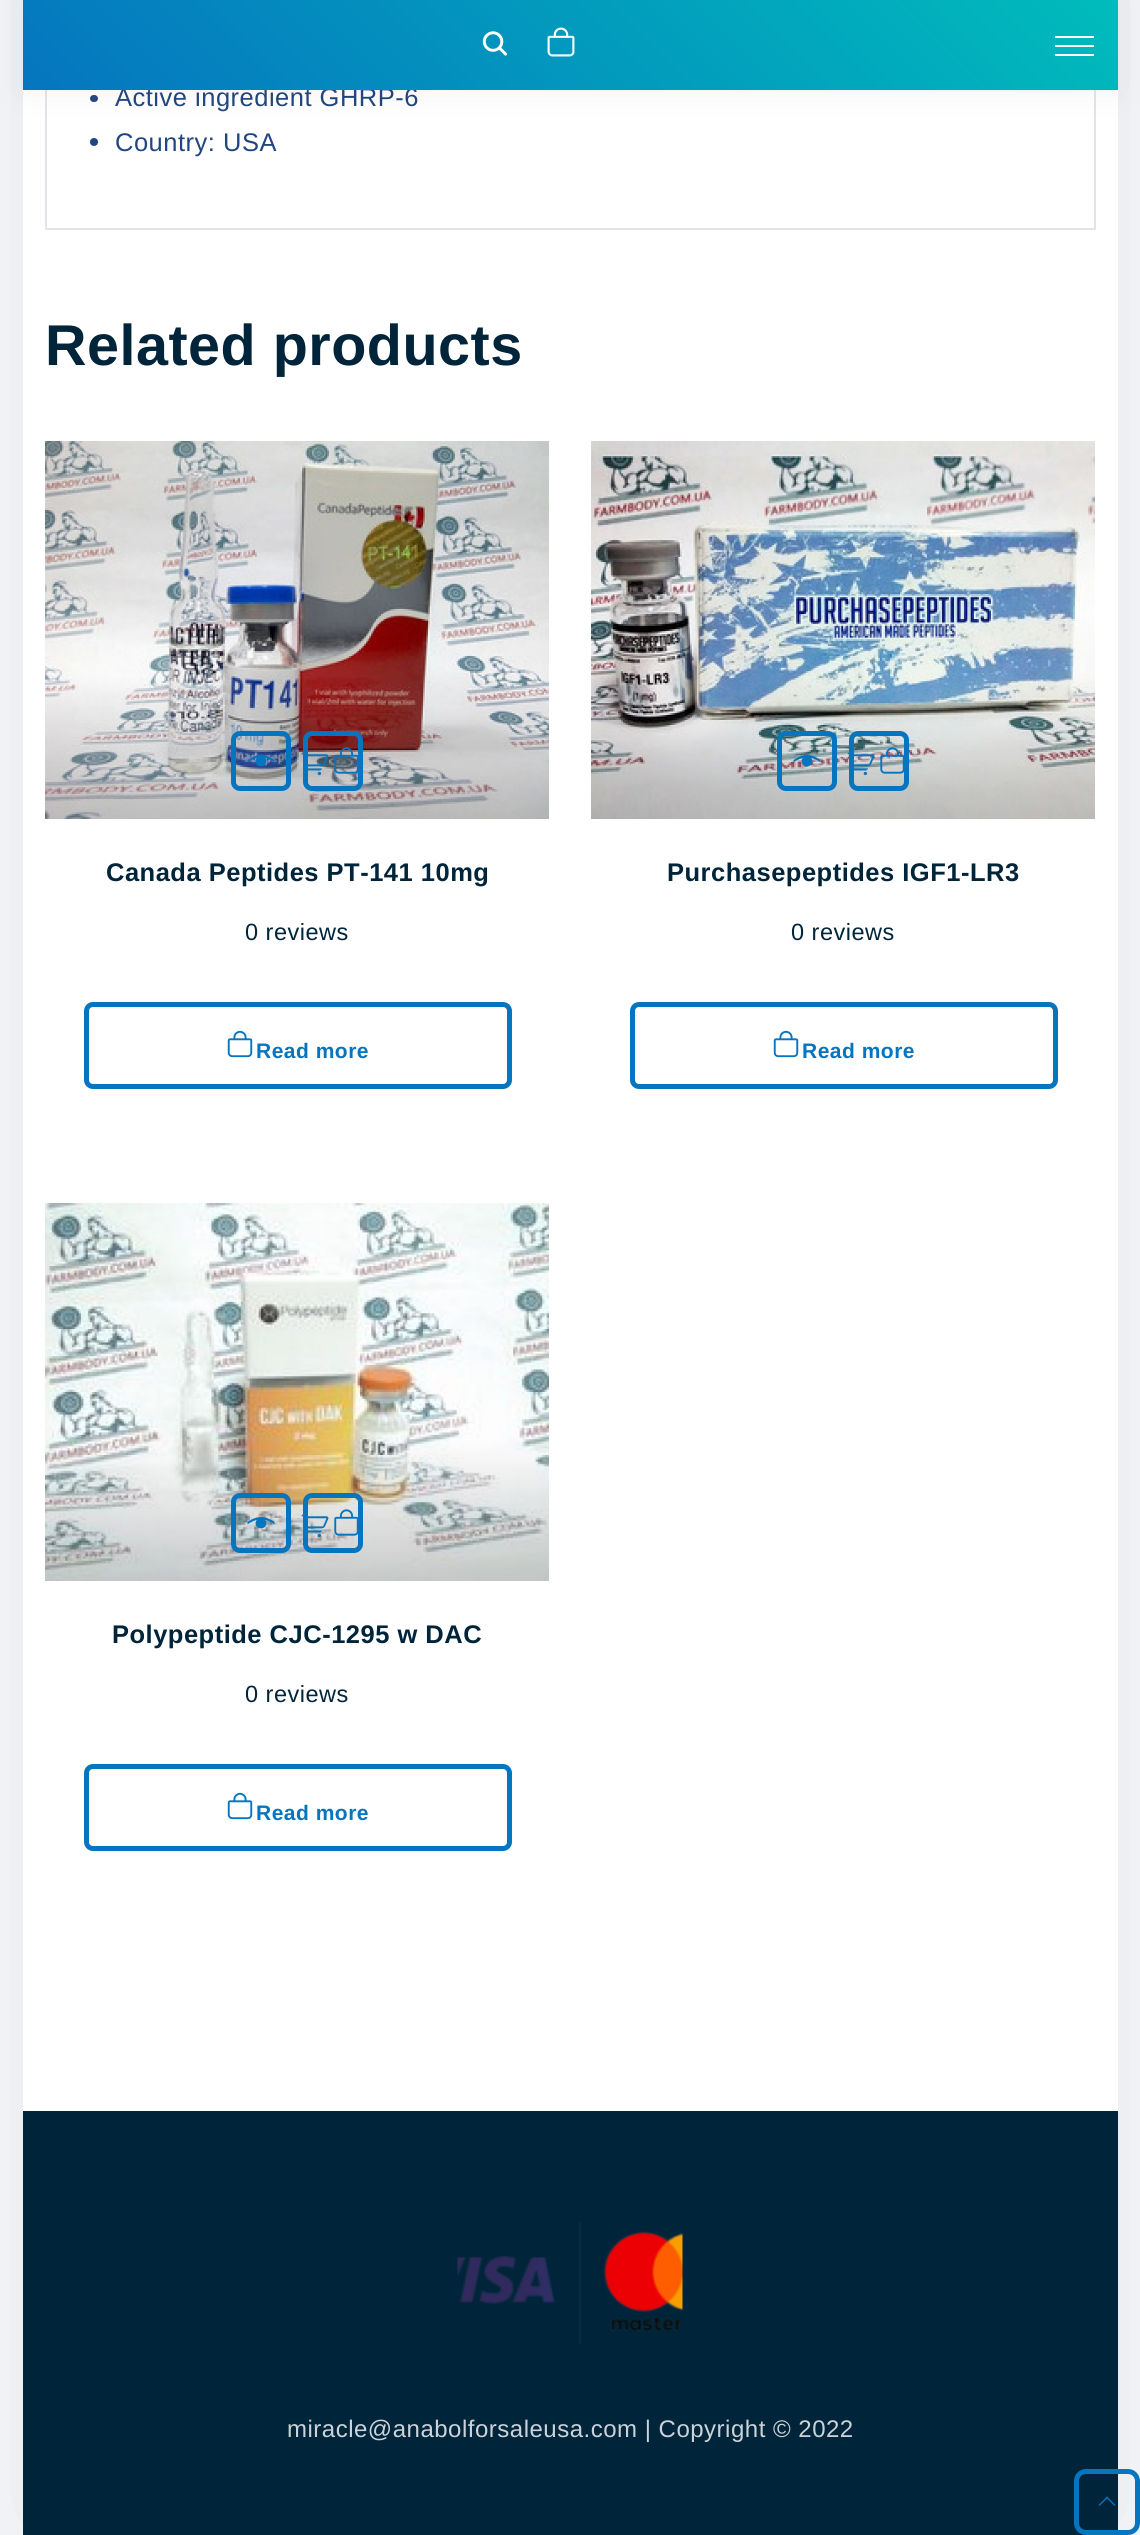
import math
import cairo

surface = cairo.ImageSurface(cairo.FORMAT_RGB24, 1140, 2535)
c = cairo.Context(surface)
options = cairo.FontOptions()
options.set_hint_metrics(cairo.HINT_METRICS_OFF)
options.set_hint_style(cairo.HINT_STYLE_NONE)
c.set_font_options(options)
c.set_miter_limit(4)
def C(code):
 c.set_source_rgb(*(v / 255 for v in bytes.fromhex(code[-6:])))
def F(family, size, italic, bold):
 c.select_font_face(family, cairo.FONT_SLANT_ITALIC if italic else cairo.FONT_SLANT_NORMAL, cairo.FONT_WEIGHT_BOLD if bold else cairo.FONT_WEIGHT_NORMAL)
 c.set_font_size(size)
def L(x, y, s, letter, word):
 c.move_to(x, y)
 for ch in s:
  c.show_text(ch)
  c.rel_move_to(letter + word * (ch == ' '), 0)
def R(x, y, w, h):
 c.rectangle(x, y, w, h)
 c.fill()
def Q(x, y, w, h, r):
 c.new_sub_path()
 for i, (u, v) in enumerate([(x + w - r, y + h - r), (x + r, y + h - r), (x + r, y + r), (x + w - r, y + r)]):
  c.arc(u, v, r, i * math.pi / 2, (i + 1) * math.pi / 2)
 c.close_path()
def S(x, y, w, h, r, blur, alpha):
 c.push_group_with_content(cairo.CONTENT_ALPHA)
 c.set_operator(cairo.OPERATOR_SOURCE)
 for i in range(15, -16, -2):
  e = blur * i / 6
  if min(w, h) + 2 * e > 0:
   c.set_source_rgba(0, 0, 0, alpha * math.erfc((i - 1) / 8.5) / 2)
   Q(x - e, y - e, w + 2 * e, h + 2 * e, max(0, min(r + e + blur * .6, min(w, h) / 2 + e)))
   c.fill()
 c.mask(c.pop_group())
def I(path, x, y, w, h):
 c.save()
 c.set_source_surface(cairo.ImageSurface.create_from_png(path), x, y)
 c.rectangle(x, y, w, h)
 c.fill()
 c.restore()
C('f9fbff')
c.paint()
C('646464')
S(23,-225,1095,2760,0,75,.15)
C('ffffff')
R(23,90,1095,2021)
C('e3e4e8')
R(1094,90,2,140)
R(45,228,1050,2)
R(45,90,2,140)
C('21467f')
Q(90,95,8,7,3.5)
c.fill()
C('646464')
S(23,0,1095,90,0,15,.1)
F('Liberation Sans',25.5,0,0)
C('21467f')
L(115,106,'Active ingredient GHRP-6',.5,0)
gradient = cairo.LinearGradient(274,341,866,-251)
gradient.add_color_stop_rgba(0,0.02,0.459,0.749,1)
gradient.add_color_stop_rgba(1,0,0.737,0.737,1)
c.set_source(gradient)
R(23,0,1095,90)
I('1.png',482,31,26,25)
I('2.png',547,27,28,30)
C('ffffff')
R(1055,45,39,2)
R(1055,36,39,2)
R(1055,54,39,2)
C('21467f')
c.arc(94,142,4,0,2 * math.pi)
c.fill()
L(115,151,'Country: USA',.5,0)
F('Liberation Sans',57.5,0,1)
C('00253a')
L(45,365,'Related products',.5,0)
I('3.png',45,441,504,378)
Q(233.5,733.5,55,55,6.5)
C('0575bf')
c.set_line_width(5)
c.stroke()
I('4.png',247,755,28,12)
Q(305.5,733.5,55,55,6.5)
c.stroke()
I('5.png',301,752,28,24)
I('6.png',334,747,24,27)
F('Liberation Sans',25.5,0,1)
C('00253a')
L(106,881,'Canada Peptides PT-141 10mg',.5,0)
F('Liberation Sans',23.5,0,0)
L(245,940,'0 reviews',.5,0)
Q(86.5,1004.5,423,82,6.5)
C('0575bf')
c.stroke()
I('7.png',227,1030,26,28)
F('Liberation Sans',21,0,1)
L(256,1058,'Read more',.5,0)
I('8.png',591,441,504,378)
Q(779.5,733.5,55,55,6.5)
c.stroke()
I('9.png',793,755,28,12)
Q(851.5,733.5,55,55,6.5)
c.stroke()
I('10.png',847,752,28,24)
I('11.png',880,747,24,27)
F('Liberation Sans',25.5,0,1)
C('00253a')
L(667,881,'Purchasepeptides IGF1-LR3',.5,0)
F('Liberation Sans',23.5,0,0)
L(791,940,'0 reviews',.5,0)
Q(632.5,1004.5,423,82,6.5)
C('0575bf')
c.stroke()
I('7.png',773,1030,26,28)
F('Liberation Sans',21,0,1)
L(802,1058,'Read more',.5,0)
I('12.png',45,1203,504,378)
Q(233.5,1495.5,55,55,6.5)
c.stroke()
I('13.png',247,1517,28,12)
Q(305.5,1495.5,55,55,6.5)
c.stroke()
I('14.png',301,1514,28,24)
I('15.png',334,1509,24,27)
F('Liberation Sans',25.5,0,1)
C('00253a')
L(112,1643,'Polypeptide CJC-1295 w DAC',.5,0)
F('Liberation Sans',23.5,0,0)
L(245,1702,'0 reviews',.5,0)
Q(86.5,1766.5,423,82,6.5)
C('0575bf')
c.stroke()
I('7.png',227,1792,26,28)
F('Liberation Sans',21,0,1)
L(256,1820,'Read more',.5,0)
C('00253a')
R(23,2111,1095,424)
I('16.png',457,2221,226,124)
F('Liberation Sans',24,0,0)
C('ccd3d8')
L(287,2437,'miracle@anabolforsaleusa.com | Copyright © 2022',.5,0)
Q(1076.5,2471.5,61,61,9.5)
C('0575bf')
c.stroke()
c.new_path()
c.move_to(1098.5,2505)
c.line_to(1107,2496.5)
c.line_to(1108,2497.5)
c.line_to(1099.5,2506)
c.close_path()
c.fill()
c.new_path()
c.move_to(1106,2497.5)
c.line_to(1107,2496.5)
c.line_to(1115.5,2505)
c.line_to(1114.5,2506)
c.close_path()
c.fill()
surface.write_to_png('o.png')
